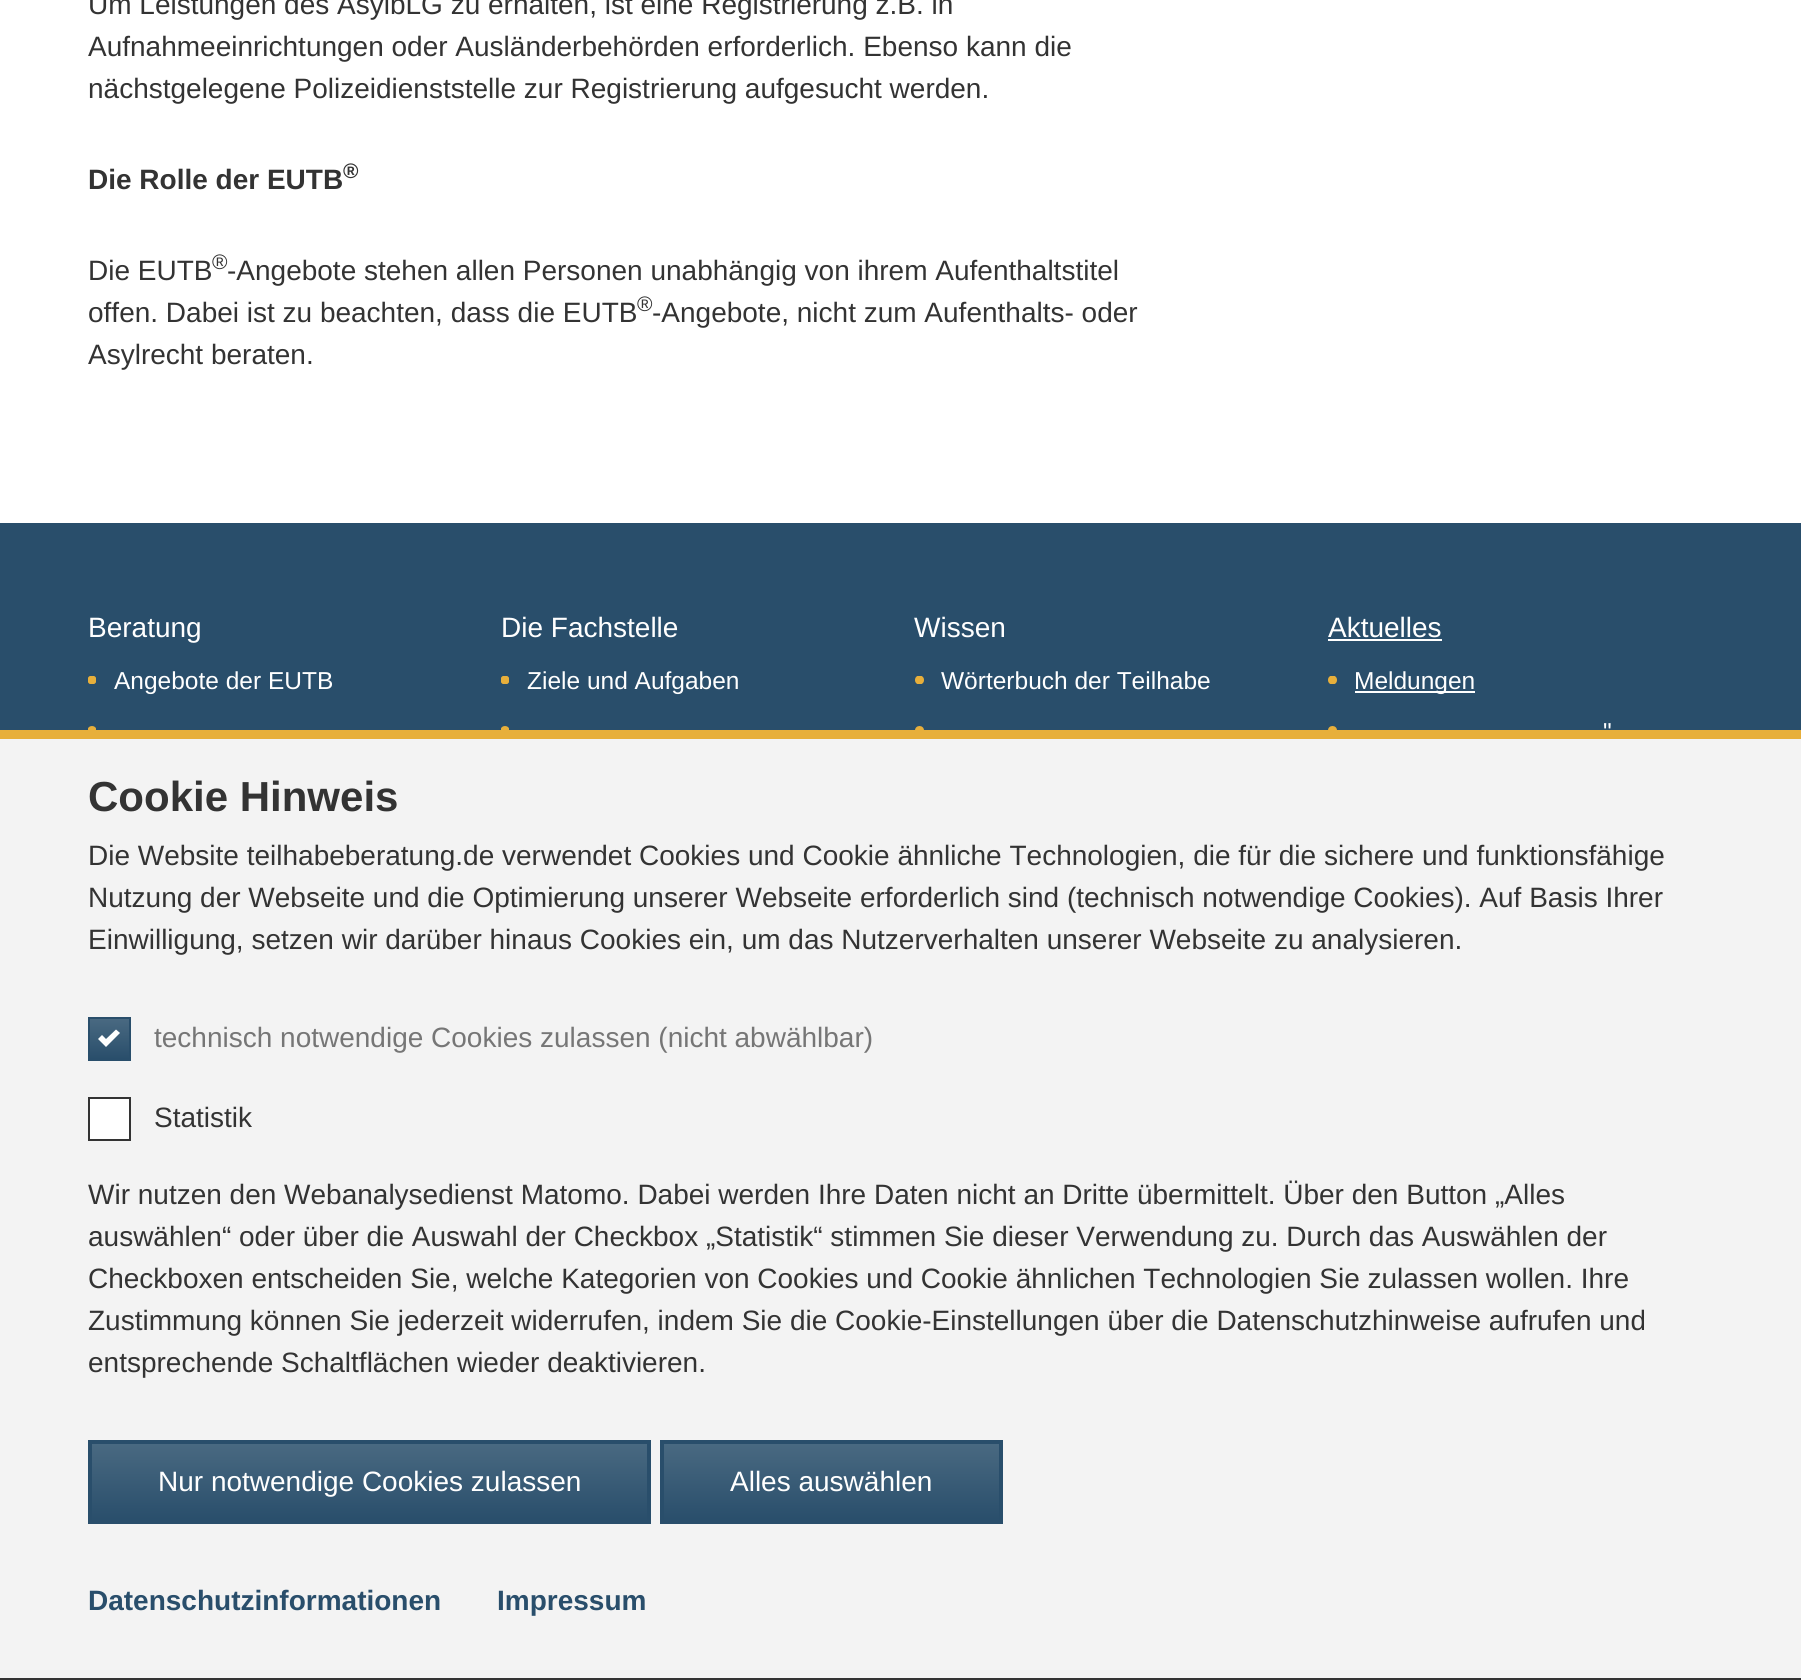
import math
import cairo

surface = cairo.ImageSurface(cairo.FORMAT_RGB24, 1801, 1680)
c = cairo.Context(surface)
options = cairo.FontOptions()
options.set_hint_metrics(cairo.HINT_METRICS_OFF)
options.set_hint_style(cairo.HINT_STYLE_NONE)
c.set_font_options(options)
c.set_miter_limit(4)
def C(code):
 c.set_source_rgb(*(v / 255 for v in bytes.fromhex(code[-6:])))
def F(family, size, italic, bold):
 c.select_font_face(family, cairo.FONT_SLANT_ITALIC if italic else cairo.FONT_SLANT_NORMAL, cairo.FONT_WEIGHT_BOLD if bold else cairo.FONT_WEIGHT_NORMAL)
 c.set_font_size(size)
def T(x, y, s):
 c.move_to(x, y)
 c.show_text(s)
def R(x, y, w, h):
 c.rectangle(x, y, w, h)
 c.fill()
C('ffffff')
c.paint()
F('Liberation Sans',28,0,0)
C('333333')
T(88,14,'Um Leistungen des AsylbLG zu erhalten, ist eine Registrierung z.B. in')
T(88,56,'Aufnahmeeinrichtungen oder Ausländerbehörden erforderlich. Ebenso kann die')
T(88,98,'nächstgelegene Polizeidienststelle zur Registrierung aufgesucht werden.')
F('Liberation Sans',28,0,1)
T(88,189,'Die Rolle der EUTB')
F('Liberation Sans',21,0,1)
T(343,178,'®')
F('Liberation Sans',28,0,0)
T(88,280,'Die EUTB')
F('Liberation Sans',21,0,0)
T(212,269,'®')
F('Liberation Sans',28,0,0)
T(227,280,'-Angebote stehen allen Personen unabhängig von ihrem Aufenthaltstitel')
T(88,322,'offen. Dabei ist zu beachten, dass die EUTB')
F('Liberation Sans',21,0,0)
T(637,311,'®')
F('Liberation Sans',28,0,0)
T(652,322,'-Angebote, nicht zum Aufenthalts- oder')
T(88,364,'Asylrecht beraten.')
C('294e6b')
R(0,523,1801,207)
C('ffffff')
T(88,637,'Beratung')
c.save()
c.rectangle(88,676,8,8)
c.clip()
C('e7af3b')
c.arc(92,680,4.5,0,2 * math.pi)
c.fill()
c.restore()
F('Liberation Sans',24.5,0,0)
T(114,689,'Angebote der EUTB')
c.save()
c.rectangle(88,726,8,9)
c.clip()
C('e7af3b')
c.arc(92,730.5,4.5,0,2 * math.pi)
c.fill()
c.restore()
F('Liberation Sans',28,0,0)
T(501,637,'Die Fachstelle')
c.save()
c.rectangle(501,676,8,8)
c.clip()
C('e7af3b')
c.arc(505,680,4.5,0,2 * math.pi)
c.fill()
c.restore()
F('Liberation Sans',24.5,0,0)
T(527,689,'Ziele und Aufgaben')
c.save()
c.rectangle(501,726,8,9)
c.clip()
C('e7af3b')
c.arc(505,730.5,4.5,0,2 * math.pi)
c.fill()
c.restore()
F('Liberation Sans',28,0,0)
T(914,637,'Wissen')
c.save()
c.rectangle(915,676,9,8)
c.clip()
C('e7af3b')
c.arc(919.5,680,4.5,0,2 * math.pi)
c.fill()
c.restore()
F('Liberation Sans',24.5,0,0)
T(941,689,'Wörterbuch der Teilhabe')
C('e7af3b')
c.new_path()
c.arc(919.5,730.5,4.5,0,2 * math.pi)
c.fill()
F('Liberation Sans',28,0,0)
C('ffffff')
T(1328,637,'Aktuelles')
R(1328,639,114,2)
c.save()
c.rectangle(1328,676,9,8)
c.clip()
C('e7af3b')
c.arc(1332.5,680,4.5,0,2 * math.pi)
c.fill()
c.restore()
R(1355,691,120,2)
F('Liberation Sans',24.5,0,0)
T(1354,689,'Meldungen')
C('e7af3b')
c.new_path()
c.arc(1332.5,730.5,4.5,0,2 * math.pi)
c.fill()
C('ffffff')
T(1603,740,'"')
C('f3f3f3')
R(0,739,1801,939)
C('e7af3b')
R(0,730,1801,9)
C('333333')
R(0,1678,1801,2)
F('Liberation Sans',42,0,1)
T(88,811,'Cookie Hinweis')
F('Liberation Sans',28,0,0)
T(88,865,'Die Website teilhabeberatung.de verwendet Cookies und Cookie ähnliche Technologien, die für die sichere und funktionsfähige')
T(88,907,'Nutzung der Webseite und die Optimierung unserer Webseite erforderlich sind (technisch notwendige Cookies). Auf Basis Ihrer')
T(88,949,'Einwilligung, setzen wir darüber hinaus Cookies ein, um das Nutzerverhalten unserer Webseite zu analysieren.')
gradient = cairo.LinearGradient(109,1019,109,1059)
gradient.add_color_stop_rgba(0,0.286,0.412,0.506,1)
gradient.add_color_stop_rgba(1,0.161,0.306,0.42,1)
c.set_source(gradient)
R(90,1019,39,40)
c.rectangle(89,1018,41,42)
C('294e6b')
c.stroke()
C('767676')
T(154,1047,'technisch notwendige Cookies zulassen (nicht abwählbar)')
C('ffffff')
c.new_path()
c.move_to(116,1029.5)
c.line_to(106,1039)
c.line_to(102,1035)
c.line_to(98,1039)
c.line_to(106,1047)
c.line_to(120,1033)
c.close_path()
c.fill()
c.rectangle(89,1098,41,42)
c.fill_preserve()
C('333333')
c.stroke()
T(154,1127,'Statistik')
T(88,1204,'Wir nutzen den Webanalysedienst Matomo. Dabei werden Ihre Daten nicht an Dritte übermittelt. Über den Button „Alles')
T(88,1246,'auswählen“ oder über die Auswahl der Checkbox „Statistik“ stimmen Sie dieser Verwendung zu. Durch das Auswählen der')
T(88,1288,'Checkboxen entscheiden Sie, welche Kategorien von Cookies und Cookie ähnlichen Technologien Sie zulassen wollen. Ihre')
T(88,1330,'Zustimmung können Sie jederzeit widerrufen, indem Sie die Cookie-Einstellungen über die Datenschutzhinweise aufrufen und')
T(88,1372,'entsprechende Schaltflächen wieder deaktivieren.')
gradient = cairo.LinearGradient(369,1444,369,1521)
gradient.add_color_stop_rgba(0,0.286,0.412,0.506,1)
gradient.add_color_stop_rgba(1,0.161,0.306,0.42,1)
c.set_source(gradient)
R(92,1444,555,76)
c.rectangle(90,1442,559,80)
C('294e6b')
c.set_line_width(4)
c.stroke()
C('ffffff')
T(158,1491,'Nur notwendige Cookies zulassen')
gradient = cairo.LinearGradient(831,1444,831,1521)
gradient.add_color_stop_rgba(0,0.286,0.412,0.506,1)
gradient.add_color_stop_rgba(1,0.161,0.306,0.42,1)
c.set_source(gradient)
R(664,1444,335,76)
c.rectangle(662,1442,339,80)
C('294e6b')
c.stroke()
C('ffffff')
T(730,1491,'Alles auswählen')
F('Liberation Sans',28,0,1)
C('294e6b')
T(88,1610,'Datenschutzinformationen')
T(497,1610,'Impressum')
surface.write_to_png('o.png')
